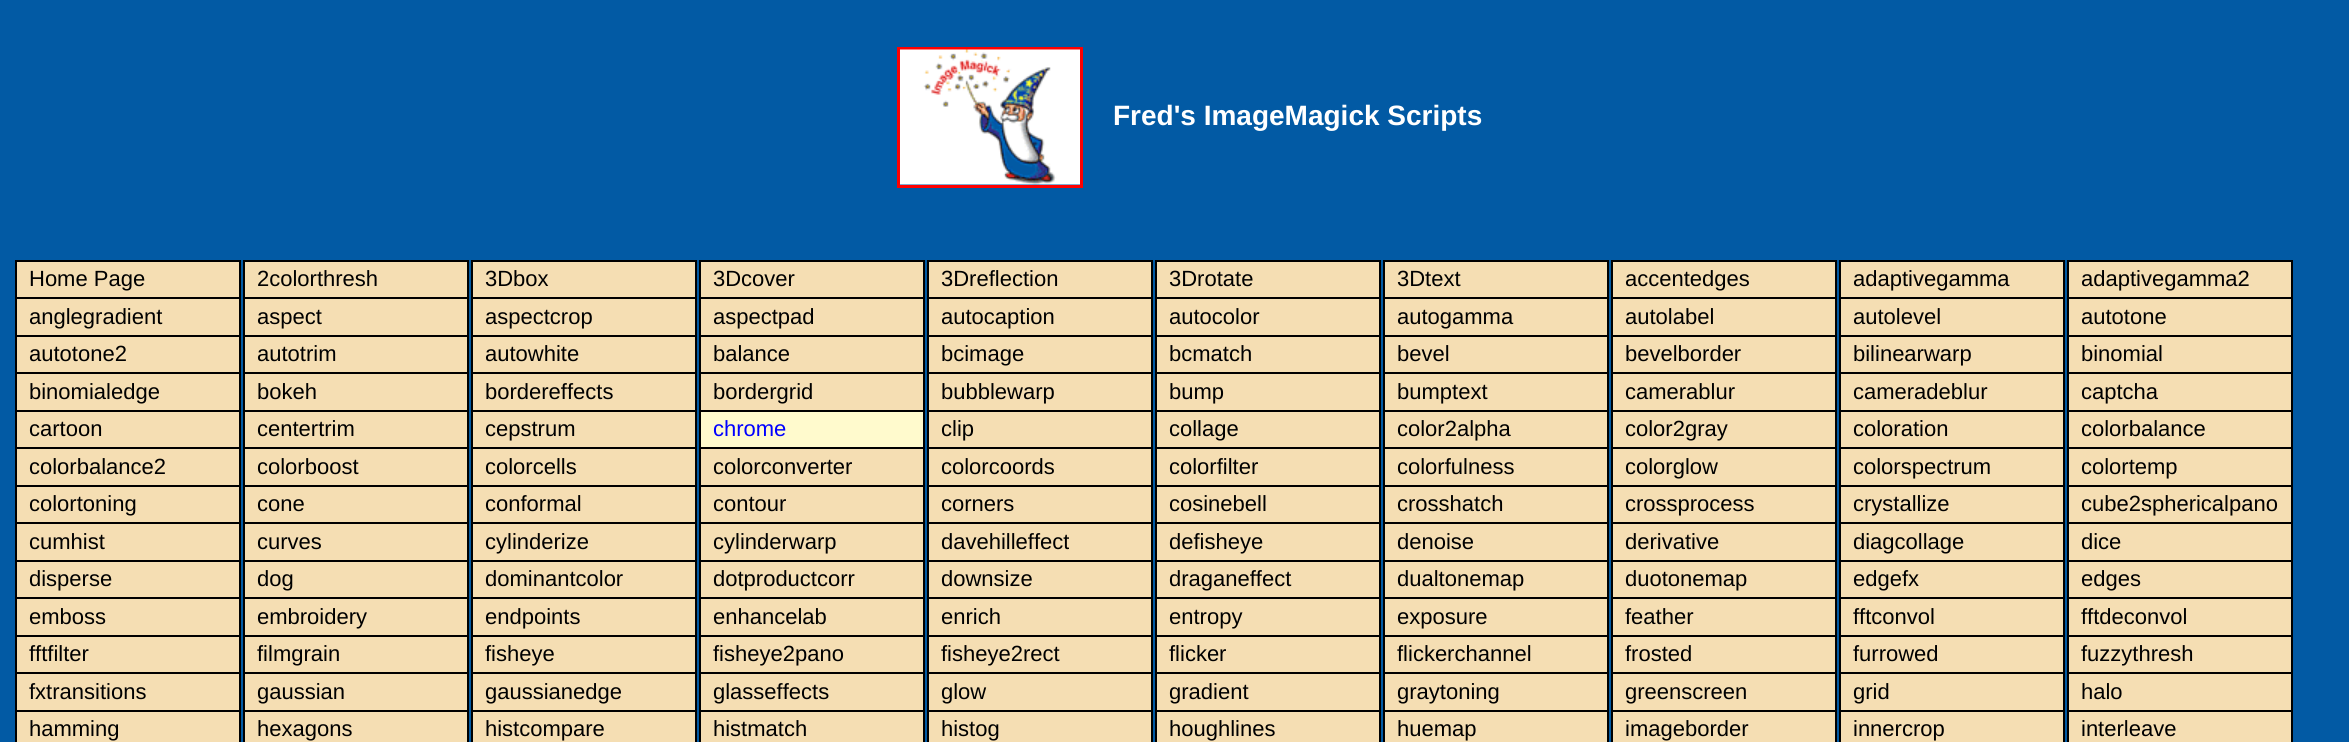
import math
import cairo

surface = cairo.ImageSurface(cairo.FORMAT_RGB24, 2349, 742)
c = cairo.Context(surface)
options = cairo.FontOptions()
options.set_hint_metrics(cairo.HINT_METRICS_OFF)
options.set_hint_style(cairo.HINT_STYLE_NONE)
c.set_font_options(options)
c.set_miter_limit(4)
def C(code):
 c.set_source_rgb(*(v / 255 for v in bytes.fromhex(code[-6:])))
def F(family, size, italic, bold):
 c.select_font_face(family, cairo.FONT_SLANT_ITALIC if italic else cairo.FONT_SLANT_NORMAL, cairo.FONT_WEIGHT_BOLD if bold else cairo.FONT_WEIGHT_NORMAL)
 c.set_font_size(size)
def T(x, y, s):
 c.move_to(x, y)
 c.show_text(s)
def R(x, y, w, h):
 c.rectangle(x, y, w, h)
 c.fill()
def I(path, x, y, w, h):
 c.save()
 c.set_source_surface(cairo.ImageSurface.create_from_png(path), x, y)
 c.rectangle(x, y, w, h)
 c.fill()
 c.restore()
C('025aa4')
c.paint()
c.rectangle(898.5,48.5,183,138)
C('ff0000')
c.set_line_width(3)
c.stroke()
I('1.png',900,49,180,136)
F('Liberation Sans',28,0,1)
C('ffffff')
T(1113,125,'Fred\'s ImageMagick Scripts')
C('f5deb3')
R(17,262,222,35)
C('000000')
R(15,260,225,2)
R(239,260,2,37)
R(15,260,2,37)
F('Liberation Sans',22,0,0)
T(29,286,'Home Page')
C('f5deb3')
R(245,262,222,35)
C('000000')
R(243,260,225,2)
R(467,260,2,37)
R(243,260,2,37)
T(257,286,'2colorthresh')
C('f5deb3')
R(473,262,222,35)
C('000000')
R(471,260,225,2)
R(695,260,2,37)
R(471,260,2,37)
T(485,286,'3Dbox')
C('f5deb3')
R(701,262,222,35)
C('000000')
R(699,260,225,2)
R(923,260,2,37)
R(699,260,2,37)
T(713,286,'3Dcover')
C('f5deb3')
R(929,262,222,35)
C('000000')
R(927,260,225,2)
R(1151,260,2,37)
R(927,260,2,37)
T(941,286,'3Dreflection')
C('f5deb3')
R(1157,262,222,35)
C('000000')
R(1155,260,225,2)
R(1379,260,2,37)
R(1155,260,2,37)
T(1169,286,'3Drotate')
C('f5deb3')
R(1385,262,222,35)
C('000000')
R(1383,260,225,2)
R(1607,260,2,37)
R(1383,260,2,37)
T(1397,286,'3Dtext')
C('f5deb3')
R(1613,262,222,35)
C('000000')
R(1611,260,225,2)
R(1835,260,2,37)
R(1611,260,2,37)
T(1625,286,'accentedges')
C('f5deb3')
R(1841,262,222,35)
C('000000')
R(1839,260,225,2)
R(2063,260,2,37)
R(1839,260,2,37)
T(1853,286,'adaptivegamma')
C('f5deb3')
R(2069,262,222,35)
C('000000')
R(2067,260,225,2)
R(2291,260,2,37)
R(2067,260,2,37)
T(2081,286,'adaptivegamma2')
C('f5deb3')
R(17,299,222,36)
C('000000')
R(15,297,225,2)
R(239,297,2,38)
R(15,297,2,38)
T(29,324,'anglegradient')
C('f5deb3')
R(245,299,222,36)
C('000000')
R(243,297,225,2)
R(467,297,2,38)
R(243,297,2,38)
T(257,324,'aspect')
C('f5deb3')
R(473,299,222,36)
C('000000')
R(471,297,225,2)
R(695,297,2,38)
R(471,297,2,38)
T(485,324,'aspectcrop')
C('f5deb3')
R(701,299,222,36)
C('000000')
R(699,297,225,2)
R(923,297,2,38)
R(699,297,2,38)
T(713,324,'aspectpad')
C('f5deb3')
R(929,299,222,36)
C('000000')
R(927,297,225,2)
R(1151,297,2,38)
R(927,297,2,38)
T(941,324,'autocaption')
C('f5deb3')
R(1157,299,222,36)
C('000000')
R(1155,297,225,2)
R(1379,297,2,38)
R(1155,297,2,38)
T(1169,324,'autocolor')
C('f5deb3')
R(1385,299,222,36)
C('000000')
R(1383,297,225,2)
R(1607,297,2,38)
R(1383,297,2,38)
T(1397,324,'autogamma')
C('f5deb3')
R(1613,299,222,36)
C('000000')
R(1611,297,225,2)
R(1835,297,2,38)
R(1611,297,2,38)
T(1625,324,'autolabel')
C('f5deb3')
R(1841,299,222,36)
C('000000')
R(1839,297,225,2)
R(2063,297,2,38)
R(1839,297,2,38)
T(1853,324,'autolevel')
C('f5deb3')
R(2069,299,222,36)
C('000000')
R(2067,297,225,2)
R(2291,297,2,38)
R(2067,297,2,38)
T(2081,324,'autotone')
C('f5deb3')
R(17,337,222,35)
C('000000')
R(15,335,225,2)
R(239,335,2,37)
R(15,335,2,37)
T(29,361,'autotone2')
C('f5deb3')
R(245,337,222,35)
C('000000')
R(243,335,225,2)
R(467,335,2,37)
R(243,335,2,37)
T(257,361,'autotrim')
C('f5deb3')
R(473,337,222,35)
C('000000')
R(471,335,225,2)
R(695,335,2,37)
R(471,335,2,37)
T(485,361,'autowhite')
C('f5deb3')
R(701,337,222,35)
C('000000')
R(699,335,225,2)
R(923,335,2,37)
R(699,335,2,37)
T(713,361,'balance')
C('f5deb3')
R(929,337,222,35)
C('000000')
R(927,335,225,2)
R(1151,335,2,37)
R(927,335,2,37)
T(941,361,'bcimage')
C('f5deb3')
R(1157,337,222,35)
C('000000')
R(1155,335,225,2)
R(1379,335,2,37)
R(1155,335,2,37)
T(1169,361,'bcmatch')
C('f5deb3')
R(1385,337,222,35)
C('000000')
R(1383,335,225,2)
R(1607,335,2,37)
R(1383,335,2,37)
T(1397,361,'bevel')
C('f5deb3')
R(1613,337,222,35)
C('000000')
R(1611,335,225,2)
R(1835,335,2,37)
R(1611,335,2,37)
T(1625,361,'bevelborder')
C('f5deb3')
R(1841,337,222,35)
C('000000')
R(1839,335,225,2)
R(2063,335,2,37)
R(1839,335,2,37)
T(1853,361,'bilinearwarp')
C('f5deb3')
R(2069,337,222,35)
C('000000')
R(2067,335,225,2)
R(2291,335,2,37)
R(2067,335,2,37)
T(2081,361,'binomial')
C('f5deb3')
R(17,374,222,36)
C('000000')
R(15,372,225,2)
R(239,372,2,38)
R(15,372,2,38)
T(29,399,'binomialedge')
C('f5deb3')
R(245,374,222,36)
C('000000')
R(243,372,225,2)
R(467,372,2,38)
R(243,372,2,38)
T(257,399,'bokeh')
C('f5deb3')
R(473,374,222,36)
C('000000')
R(471,372,225,2)
R(695,372,2,38)
R(471,372,2,38)
T(485,399,'bordereffects')
C('f5deb3')
R(701,374,222,36)
C('000000')
R(699,372,225,2)
R(923,372,2,38)
R(699,372,2,38)
T(713,399,'bordergrid')
C('f5deb3')
R(929,374,222,36)
C('000000')
R(927,372,225,2)
R(1151,372,2,38)
R(927,372,2,38)
T(941,399,'bubblewarp')
C('f5deb3')
R(1157,374,222,36)
C('000000')
R(1155,372,225,2)
R(1379,372,2,38)
R(1155,372,2,38)
T(1169,399,'bump')
C('f5deb3')
R(1385,374,222,36)
C('000000')
R(1383,372,225,2)
R(1607,372,2,38)
R(1383,372,2,38)
T(1397,399,'bumptext')
C('f5deb3')
R(1613,374,222,36)
C('000000')
R(1611,372,225,2)
R(1835,372,2,38)
R(1611,372,2,38)
T(1625,399,'camerablur')
C('f5deb3')
R(1841,374,222,36)
C('000000')
R(1839,372,225,2)
R(2063,372,2,38)
R(1839,372,2,38)
T(1853,399,'cameradeblur')
C('f5deb3')
R(2069,374,222,36)
C('000000')
R(2067,372,225,2)
R(2291,372,2,38)
R(2067,372,2,38)
T(2081,399,'captcha')
C('f5deb3')
R(17,412,222,35)
C('000000')
R(15,410,225,2)
R(239,410,2,37)
R(15,410,2,37)
T(29,436,'cartoon')
C('f5deb3')
R(245,412,222,35)
C('000000')
R(243,410,225,2)
R(467,410,2,37)
R(243,410,2,37)
T(257,436,'centertrim')
C('f5deb3')
R(473,412,222,35)
C('000000')
R(471,410,225,2)
R(695,410,2,37)
R(471,410,2,37)
T(485,436,'cepstrum')
C('fffacd')
R(701,412,222,35)
C('000000')
R(699,410,225,2)
R(923,410,2,37)
R(699,410,2,37)
C('0000ff')
T(713,436,'chrome')
C('f5deb3')
R(929,412,222,35)
C('000000')
R(927,410,225,2)
R(1151,410,2,37)
R(927,410,2,37)
T(941,436,'clip')
C('f5deb3')
R(1157,412,222,35)
C('000000')
R(1155,410,225,2)
R(1379,410,2,37)
R(1155,410,2,37)
T(1169,436,'collage')
C('f5deb3')
R(1385,412,222,35)
C('000000')
R(1383,410,225,2)
R(1607,410,2,37)
R(1383,410,2,37)
T(1397,436,'color2alpha')
C('f5deb3')
R(1613,412,222,35)
C('000000')
R(1611,410,225,2)
R(1835,410,2,37)
R(1611,410,2,37)
T(1625,436,'color2gray')
C('f5deb3')
R(1841,412,222,35)
C('000000')
R(1839,410,225,2)
R(2063,410,2,37)
R(1839,410,2,37)
T(1853,436,'coloration')
C('f5deb3')
R(2069,412,222,35)
C('000000')
R(2067,410,225,2)
R(2291,410,2,37)
R(2067,410,2,37)
T(2081,436,'colorbalance')
C('f5deb3')
R(17,449,222,36)
C('000000')
R(15,447,225,2)
R(239,447,2,38)
R(15,447,2,38)
T(29,474,'colorbalance2')
C('f5deb3')
R(245,449,222,36)
C('000000')
R(243,447,225,2)
R(467,447,2,38)
R(243,447,2,38)
T(257,474,'colorboost')
C('f5deb3')
R(473,449,222,36)
C('000000')
R(471,447,225,2)
R(695,447,2,38)
R(471,447,2,38)
T(485,474,'colorcells')
C('f5deb3')
R(701,449,222,36)
C('000000')
R(699,447,225,2)
R(923,447,2,38)
R(699,447,2,38)
T(713,474,'colorconverter')
C('f5deb3')
R(929,449,222,36)
C('000000')
R(927,447,225,2)
R(1151,447,2,38)
R(927,447,2,38)
T(941,474,'colorcoords')
C('f5deb3')
R(1157,449,222,36)
C('000000')
R(1155,447,225,2)
R(1379,447,2,38)
R(1155,447,2,38)
T(1169,474,'colorfilter')
C('f5deb3')
R(1385,449,222,36)
C('000000')
R(1383,447,225,2)
R(1607,447,2,38)
R(1383,447,2,38)
T(1397,474,'colorfulness')
C('f5deb3')
R(1613,449,222,36)
C('000000')
R(1611,447,225,2)
R(1835,447,2,38)
R(1611,447,2,38)
T(1625,474,'colorglow')
C('f5deb3')
R(1841,449,222,36)
C('000000')
R(1839,447,225,2)
R(2063,447,2,38)
R(1839,447,2,38)
T(1853,474,'colorspectrum')
C('f5deb3')
R(2069,449,222,36)
C('000000')
R(2067,447,225,2)
R(2291,447,2,38)
R(2067,447,2,38)
T(2081,474,'colortemp')
C('f5deb3')
R(17,487,222,35)
C('000000')
R(15,485,225,2)
R(239,485,2,37)
R(15,485,2,37)
T(29,511,'colortoning')
C('f5deb3')
R(245,487,222,35)
C('000000')
R(243,485,225,2)
R(467,485,2,37)
R(243,485,2,37)
T(257,511,'cone')
C('f5deb3')
R(473,487,222,35)
C('000000')
R(471,485,225,2)
R(695,485,2,37)
R(471,485,2,37)
T(485,511,'conformal')
C('f5deb3')
R(701,487,222,35)
C('000000')
R(699,485,225,2)
R(923,485,2,37)
R(699,485,2,37)
T(713,511,'contour')
C('f5deb3')
R(929,487,222,35)
C('000000')
R(927,485,225,2)
R(1151,485,2,37)
R(927,485,2,37)
T(941,511,'corners')
C('f5deb3')
R(1157,487,222,35)
C('000000')
R(1155,485,225,2)
R(1379,485,2,37)
R(1155,485,2,37)
T(1169,511,'cosinebell')
C('f5deb3')
R(1385,487,222,35)
C('000000')
R(1383,485,225,2)
R(1607,485,2,37)
R(1383,485,2,37)
T(1397,511,'crosshatch')
C('f5deb3')
R(1613,487,222,35)
C('000000')
R(1611,485,225,2)
R(1835,485,2,37)
R(1611,485,2,37)
T(1625,511,'crossprocess')
C('f5deb3')
R(1841,487,222,35)
C('000000')
R(1839,485,225,2)
R(2063,485,2,37)
R(1839,485,2,37)
T(1853,511,'crystallize')
C('f5deb3')
R(2069,487,222,35)
C('000000')
R(2067,485,225,2)
R(2291,485,2,37)
R(2067,485,2,37)
T(2081,511,'cube2sphericalpano')
C('f5deb3')
R(17,524,222,36)
C('000000')
R(15,522,225,2)
R(239,522,2,38)
R(15,522,2,38)
T(29,549,'cumhist')
C('f5deb3')
R(245,524,222,36)
C('000000')
R(243,522,225,2)
R(467,522,2,38)
R(243,522,2,38)
T(257,549,'curves')
C('f5deb3')
R(473,524,222,36)
C('000000')
R(471,522,225,2)
R(695,522,2,38)
R(471,522,2,38)
T(485,549,'cylinderize')
C('f5deb3')
R(701,524,222,36)
C('000000')
R(699,522,225,2)
R(923,522,2,38)
R(699,522,2,38)
T(713,549,'cylinderwarp')
C('f5deb3')
R(929,524,222,36)
C('000000')
R(927,522,225,2)
R(1151,522,2,38)
R(927,522,2,38)
T(941,549,'davehilleffect')
C('f5deb3')
R(1157,524,222,36)
C('000000')
R(1155,522,225,2)
R(1379,522,2,38)
R(1155,522,2,38)
T(1169,549,'defisheye')
C('f5deb3')
R(1385,524,222,36)
C('000000')
R(1383,522,225,2)
R(1607,522,2,38)
R(1383,522,2,38)
T(1397,549,'denoise')
C('f5deb3')
R(1613,524,222,36)
C('000000')
R(1611,522,225,2)
R(1835,522,2,38)
R(1611,522,2,38)
T(1625,549,'derivative')
C('f5deb3')
R(1841,524,222,36)
C('000000')
R(1839,522,225,2)
R(2063,522,2,38)
R(1839,522,2,38)
T(1853,549,'diagcollage')
C('f5deb3')
R(2069,524,222,36)
C('000000')
R(2067,522,225,2)
R(2291,522,2,38)
R(2067,522,2,38)
T(2081,549,'dice')
C('f5deb3')
R(17,562,222,35)
C('000000')
R(15,560,225,2)
R(239,560,2,37)
R(15,560,2,37)
T(29,586,'disperse')
C('f5deb3')
R(245,562,222,35)
C('000000')
R(243,560,225,2)
R(467,560,2,37)
R(243,560,2,37)
T(257,586,'dog')
C('f5deb3')
R(473,562,222,35)
C('000000')
R(471,560,225,2)
R(695,560,2,37)
R(471,560,2,37)
T(485,586,'dominantcolor')
C('f5deb3')
R(701,562,222,35)
C('000000')
R(699,560,225,2)
R(923,560,2,37)
R(699,560,2,37)
T(713,586,'dotproductcorr')
C('f5deb3')
R(929,562,222,35)
C('000000')
R(927,560,225,2)
R(1151,560,2,37)
R(927,560,2,37)
T(941,586,'downsize')
C('f5deb3')
R(1157,562,222,35)
C('000000')
R(1155,560,225,2)
R(1379,560,2,37)
R(1155,560,2,37)
T(1169,586,'draganeffect')
C('f5deb3')
R(1385,562,222,35)
C('000000')
R(1383,560,225,2)
R(1607,560,2,37)
R(1383,560,2,37)
T(1397,586,'dualtonemap')
C('f5deb3')
R(1613,562,222,35)
C('000000')
R(1611,560,225,2)
R(1835,560,2,37)
R(1611,560,2,37)
T(1625,586,'duotonemap')
C('f5deb3')
R(1841,562,222,35)
C('000000')
R(1839,560,225,2)
R(2063,560,2,37)
R(1839,560,2,37)
T(1853,586,'edgefx')
C('f5deb3')
R(2069,562,222,35)
C('000000')
R(2067,560,225,2)
R(2291,560,2,37)
R(2067,560,2,37)
T(2081,586,'edges')
C('f5deb3')
R(17,599,222,36)
C('000000')
R(15,597,225,2)
R(239,597,2,38)
R(15,597,2,38)
T(29,624,'emboss')
C('f5deb3')
R(245,599,222,36)
C('000000')
R(243,597,225,2)
R(467,597,2,38)
R(243,597,2,38)
T(257,624,'embroidery')
C('f5deb3')
R(473,599,222,36)
C('000000')
R(471,597,225,2)
R(695,597,2,38)
R(471,597,2,38)
T(485,624,'endpoints')
C('f5deb3')
R(701,599,222,36)
C('000000')
R(699,597,225,2)
R(923,597,2,38)
R(699,597,2,38)
T(713,624,'enhancelab')
C('f5deb3')
R(929,599,222,36)
C('000000')
R(927,597,225,2)
R(1151,597,2,38)
R(927,597,2,38)
T(941,624,'enrich')
C('f5deb3')
R(1157,599,222,36)
C('000000')
R(1155,597,225,2)
R(1379,597,2,38)
R(1155,597,2,38)
T(1169,624,'entropy')
C('f5deb3')
R(1385,599,222,36)
C('000000')
R(1383,597,225,2)
R(1607,597,2,38)
R(1383,597,2,38)
T(1397,624,'exposure')
C('f5deb3')
R(1613,599,222,36)
C('000000')
R(1611,597,225,2)
R(1835,597,2,38)
R(1611,597,2,38)
T(1625,624,'feather')
C('f5deb3')
R(1841,599,222,36)
C('000000')
R(1839,597,225,2)
R(2063,597,2,38)
R(1839,597,2,38)
T(1853,624,'fftconvol')
C('f5deb3')
R(2069,599,222,36)
C('000000')
R(2067,597,225,2)
R(2291,597,2,38)
R(2067,597,2,38)
T(2081,624,'fftdeconvol')
C('f5deb3')
R(17,637,222,35)
C('000000')
R(15,635,225,2)
R(239,635,2,37)
R(15,635,2,37)
T(29,661,'fftfilter')
C('f5deb3')
R(245,637,222,35)
C('000000')
R(243,635,225,2)
R(467,635,2,37)
R(243,635,2,37)
T(257,661,'filmgrain')
C('f5deb3')
R(473,637,222,35)
C('000000')
R(471,635,225,2)
R(695,635,2,37)
R(471,635,2,37)
T(485,661,'fisheye')
C('f5deb3')
R(701,637,222,35)
C('000000')
R(699,635,225,2)
R(923,635,2,37)
R(699,635,2,37)
T(713,661,'fisheye2pano')
C('f5deb3')
R(929,637,222,35)
C('000000')
R(927,635,225,2)
R(1151,635,2,37)
R(927,635,2,37)
T(941,661,'fisheye2rect')
C('f5deb3')
R(1157,637,222,35)
C('000000')
R(1155,635,225,2)
R(1379,635,2,37)
R(1155,635,2,37)
T(1169,661,'flicker')
C('f5deb3')
R(1385,637,222,35)
C('000000')
R(1383,635,225,2)
R(1607,635,2,37)
R(1383,635,2,37)
T(1397,661,'flickerchannel')
C('f5deb3')
R(1613,637,222,35)
C('000000')
R(1611,635,225,2)
R(1835,635,2,37)
R(1611,635,2,37)
T(1625,661,'frosted')
C('f5deb3')
R(1841,637,222,35)
C('000000')
R(1839,635,225,2)
R(2063,635,2,37)
R(1839,635,2,37)
T(1853,661,'furrowed')
C('f5deb3')
R(2069,637,222,35)
C('000000')
R(2067,635,225,2)
R(2291,635,2,37)
R(2067,635,2,37)
T(2081,661,'fuzzythresh')
C('f5deb3')
R(17,674,222,36)
C('000000')
R(15,672,225,2)
R(239,672,2,38)
R(15,672,2,38)
T(29,699,'fxtransitions')
C('f5deb3')
R(245,674,222,36)
C('000000')
R(243,672,225,2)
R(467,672,2,38)
R(243,672,2,38)
T(257,699,'gaussian')
C('f5deb3')
R(473,674,222,36)
C('000000')
R(471,672,225,2)
R(695,672,2,38)
R(471,672,2,38)
T(485,699,'gaussianedge')
C('f5deb3')
R(701,674,222,36)
C('000000')
R(699,672,225,2)
R(923,672,2,38)
R(699,672,2,38)
T(713,699,'glasseffects')
C('f5deb3')
R(929,674,222,36)
C('000000')
R(927,672,225,2)
R(1151,672,2,38)
R(927,672,2,38)
T(941,699,'glow')
C('f5deb3')
R(1157,674,222,36)
C('000000')
R(1155,672,225,2)
R(1379,672,2,38)
R(1155,672,2,38)
T(1169,699,'gradient')
C('f5deb3')
R(1385,674,222,36)
C('000000')
R(1383,672,225,2)
R(1607,672,2,38)
R(1383,672,2,38)
T(1397,699,'graytoning')
C('f5deb3')
R(1613,674,222,36)
C('000000')
R(1611,672,225,2)
R(1835,672,2,38)
R(1611,672,2,38)
T(1625,699,'greenscreen')
C('f5deb3')
R(1841,674,222,36)
C('000000')
R(1839,672,225,2)
R(2063,672,2,38)
R(1839,672,2,38)
T(1853,699,'grid')
C('f5deb3')
R(2069,674,222,36)
C('000000')
R(2067,672,225,2)
R(2291,672,2,38)
R(2067,672,2,38)
T(2081,699,'halo')
C('f5deb3')
R(17,712,222,30)
C('000000')
R(15,710,225,2)
R(239,710,2,32)
R(15,710,2,32)
T(29,736,'hamming')
C('f5deb3')
R(245,712,222,30)
C('000000')
R(243,710,225,2)
R(467,710,2,32)
R(243,710,2,32)
T(257,736,'hexagons')
C('f5deb3')
R(473,712,222,30)
C('000000')
R(471,710,225,2)
R(695,710,2,32)
R(471,710,2,32)
T(485,736,'histcompare')
C('f5deb3')
R(701,712,222,30)
C('000000')
R(699,710,225,2)
R(923,710,2,32)
R(699,710,2,32)
T(713,736,'histmatch')
C('f5deb3')
R(929,712,222,30)
C('000000')
R(927,710,225,2)
R(1151,710,2,32)
R(927,710,2,32)
T(941,736,'histog')
C('f5deb3')
R(1157,712,222,30)
C('000000')
R(1155,710,225,2)
R(1379,710,2,32)
R(1155,710,2,32)
T(1169,736,'houghlines')
C('f5deb3')
R(1385,712,222,30)
C('000000')
R(1383,710,225,2)
R(1607,710,2,32)
R(1383,710,2,32)
T(1397,736,'huemap')
C('f5deb3')
R(1613,712,222,30)
C('000000')
R(1611,710,225,2)
R(1835,710,2,32)
R(1611,710,2,32)
T(1625,736,'imageborder')
C('f5deb3')
R(1841,712,222,30)
C('000000')
R(1839,710,225,2)
R(2063,710,2,32)
R(1839,710,2,32)
T(1853,736,'innercrop')
C('f5deb3')
R(2069,712,222,30)
C('000000')
R(2067,710,225,2)
R(2291,710,2,32)
R(2067,710,2,32)
T(2081,736,'interleave')
surface.write_to_png('o.png')
